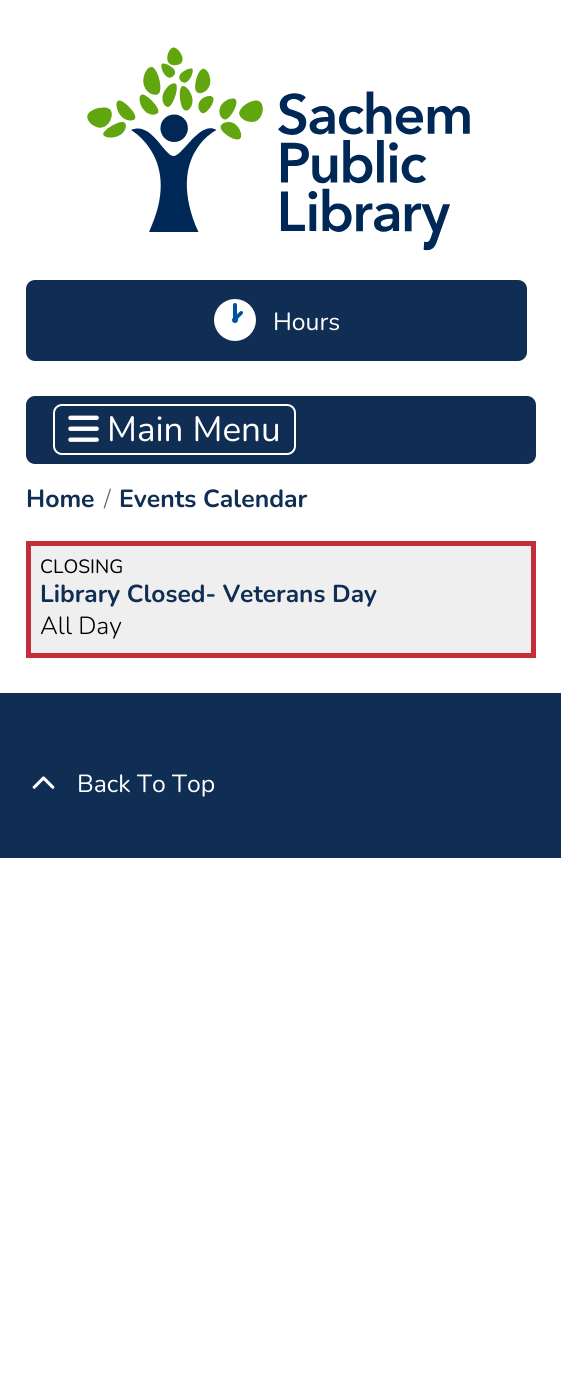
import math
import cairo

surface = cairo.ImageSurface(cairo.FORMAT_RGB24, 561, 1382)
c = cairo.Context(surface)
options = cairo.FontOptions()
options.set_hint_metrics(cairo.HINT_METRICS_OFF)
options.set_hint_style(cairo.HINT_STYLE_NONE)
c.set_font_options(options)
c.set_miter_limit(4)
def C(code):
 c.set_source_rgb(*(v / 255 for v in bytes.fromhex(code[-6:])))
def F(family, size, italic, bold):
 c.select_font_face(family, cairo.FONT_SLANT_ITALIC if italic else cairo.FONT_SLANT_NORMAL, cairo.FONT_WEIGHT_BOLD if bold else cairo.FONT_WEIGHT_NORMAL)
 c.set_font_size(size)
def T(x, y, s):
 c.move_to(x, y)
 c.show_text(s)
def R(x, y, w, h):
 c.rectangle(x, y, w, h)
 c.fill()
def Q(x, y, w, h, r):
 c.new_sub_path()
 for i, (u, v) in enumerate([(x + w - r, y + h - r), (x + r, y + h - r), (x + r, y + r), (x + w - r, y + r)]):
  c.arc(u, v, r, i * math.pi / 2, (i + 1) * math.pi / 2)
 c.close_path()
def I(path, x, y, w, h):
 c.save()
 c.set_source_surface(cairo.ImageSurface.create_from_png(path), x, y)
 c.rectangle(x, y, w, h)
 c.fill()
 c.restore()
C('ffffff')
c.paint()
I('1.png',87,47,383,204)
C('102d53')
Q(27,281,499,79,8)
c.fill_preserve()
c.stroke()
C('00549f')
c.arc(235,320,12,0,2 * math.pi)
c.fill_preserve()
C('ffffff')
c.set_line_width(18)
c.stroke()
C('00549f')
Q(233,303,4,17,2)
c.fill()
c.new_path()
c.move_to(242.5,311.5)
c.curve_to(244.5,313.5,240.5,316,239.5,317)
c.curve_to(238.5,318,236,322,234,320)
c.curve_to(232,318.5,236,315.5,237,314.5)
c.curve_to(238,313.5,241,309.5,242.5,311.5)
c.close_path()
c.fill()
F('Nunito',24.75,0,0)
C('ffffff')
T(273,330,'Hours')
C('102d53')
Q(26,396,510,68,9)
c.fill()
Q(54,405,241,49,8)
C('ffffff')
c.set_line_width(2)
c.stroke()
I('2.png',68,415,31,27)
F('Nunito',35,0,0)
T(107,441,'Main Menu')
F('Nunito',24.75,0,1)
C('102d53')
T(26,507,'Home')
F('Nunito Light',24.75,0,0)
C('666666')
T(104,507,'/')
F('Nunito',24.75,0,1)
C('102d53')
T(119,507,'Events Calendar')
C('efefef')
c.rectangle(28.5,543.5,505,112)
c.fill_preserve()
C('c22f3b')
c.set_line_width(5)
c.stroke()
F('Nunito',19.25,0,0)
C('000000')
T(40,573,'CLOSING')
F('Nunito',24.5,0,1)
C('102d53')
T(40,602,'Library Closed- Veterans Day')
F('Nunito Light',24.75,0,0)
C('000000')
T(40,634,'All Day')
C('102d53')
R(0,693,561,165)
I('3.png',32,776,23,13)
F('Nunito',24.75,0,0)
C('ffffff')
T(77,792,'Back To Top')
surface.write_to_png('o.png')
